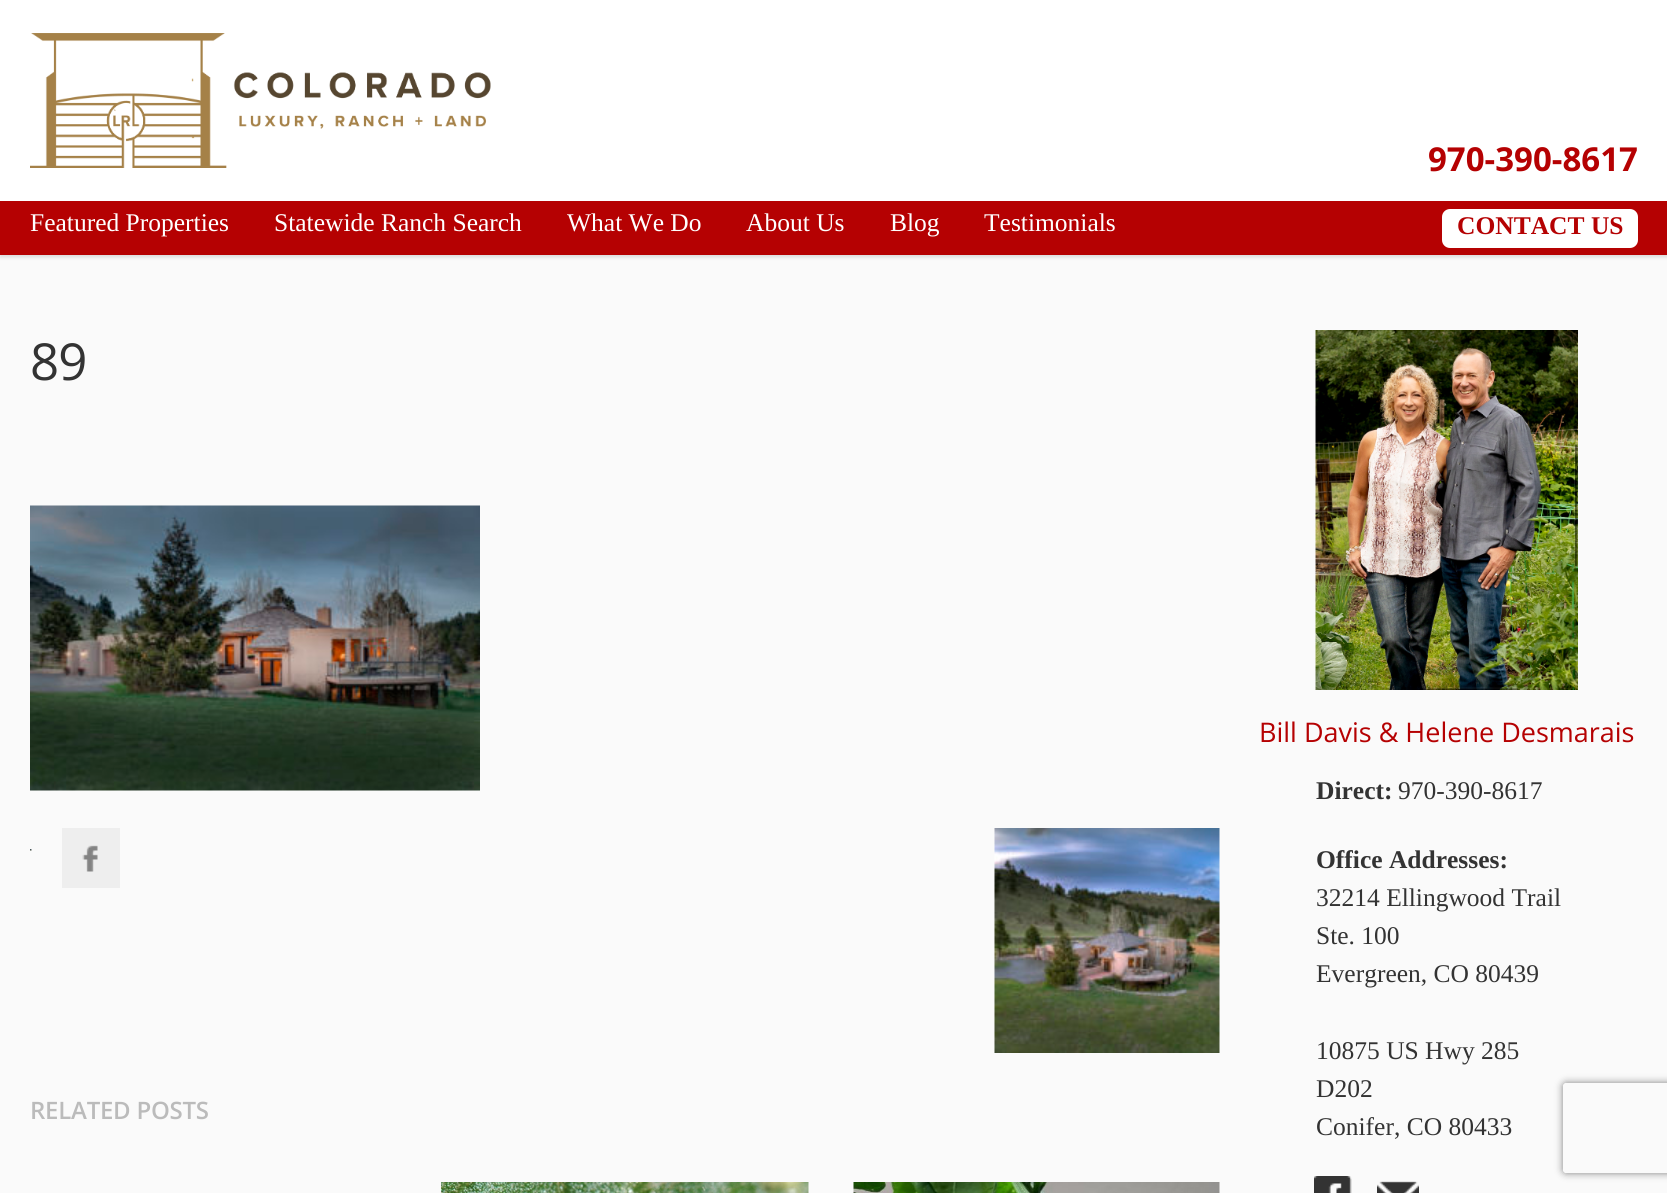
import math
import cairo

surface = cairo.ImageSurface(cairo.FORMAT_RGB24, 1667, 1193)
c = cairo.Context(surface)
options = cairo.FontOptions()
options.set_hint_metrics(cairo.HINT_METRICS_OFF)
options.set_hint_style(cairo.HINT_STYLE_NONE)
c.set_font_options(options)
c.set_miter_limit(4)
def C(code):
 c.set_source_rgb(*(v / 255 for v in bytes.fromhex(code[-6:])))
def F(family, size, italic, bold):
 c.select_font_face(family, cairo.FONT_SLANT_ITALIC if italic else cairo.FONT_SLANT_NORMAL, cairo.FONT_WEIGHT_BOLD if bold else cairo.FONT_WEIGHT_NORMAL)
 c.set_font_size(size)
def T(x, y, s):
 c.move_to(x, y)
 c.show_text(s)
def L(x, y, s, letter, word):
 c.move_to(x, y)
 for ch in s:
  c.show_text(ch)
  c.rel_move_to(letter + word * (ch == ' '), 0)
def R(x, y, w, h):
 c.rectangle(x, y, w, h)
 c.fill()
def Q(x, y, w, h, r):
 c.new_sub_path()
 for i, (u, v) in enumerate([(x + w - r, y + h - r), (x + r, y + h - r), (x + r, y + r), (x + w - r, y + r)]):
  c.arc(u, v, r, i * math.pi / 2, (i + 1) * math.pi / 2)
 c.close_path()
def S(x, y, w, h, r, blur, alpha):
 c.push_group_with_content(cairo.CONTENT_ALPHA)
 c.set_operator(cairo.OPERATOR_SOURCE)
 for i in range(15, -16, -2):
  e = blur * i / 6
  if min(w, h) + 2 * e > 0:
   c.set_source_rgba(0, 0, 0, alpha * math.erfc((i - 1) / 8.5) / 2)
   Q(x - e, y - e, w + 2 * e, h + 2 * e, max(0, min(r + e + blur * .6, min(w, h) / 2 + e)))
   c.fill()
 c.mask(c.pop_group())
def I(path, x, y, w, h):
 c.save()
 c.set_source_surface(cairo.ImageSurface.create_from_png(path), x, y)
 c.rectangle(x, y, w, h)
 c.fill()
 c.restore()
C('fafafa')
c.paint()
C('000000')
S(0,2,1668,255,0,2,.14)
C('ffffff')
R(0,0,1667,201)
I('1.png',30,33,461,135)
F('Open Sans',33,0,1)
C('b50102')
T(1428,171,'970-390-8617')
R(0,201,1667,54)
F('Liberation Serif',25.5,0,0)
C('ffffff')
T(30,231,'Featured Properties')
T(274,231,'Statewide Ranch Search')
T(567,231,'What We Do')
T(746,231,'About Us')
T(890,231,'Blog')
T(984,231,'Testimonials')
Q(1442,209,196,39,8)
c.fill()
F('Liberation Serif',25.5,0,1)
C('b50102')
T(1457,234,'CONTACT US')
F('Open Sans',51,0,0)
C('333333')
L(30,380,'89',-1,0)
I('2.png',30,505,450,286)
I('3.png',30,849,2,2)
I('4.png',994,828,226,225)
C('eeeeee')
R(62,828,58,60)
I('5.png',82,845,16,27)
F('Open Sans SemiBold',24,0,0)
C('bbbbbb')
L(30,1119,'RELATED POSTS',-.25,0)
I('6.png',441,1182,368,11)
I('7.png',853,1182,367,11)
I('8.png',1315,330,263,360)
F('Open Sans',27,0,0)
C('b50102')
T(1259,742,'Bill Davis & Helene Desmarais')
F('Liberation Serif',25.5,0,1)
C('333333')
T(1316,799,'Direct:')
F('Liberation Serif',25.5,0,0)
T(1398,799,'970-390-8617')
F('Liberation Serif',25.5,0,1)
T(1316,868,'Office Addresses:')
F('Liberation Serif',25.5,0,0)
T(1316,906,'32214 Ellingwood Trail')
T(1316,944,'Ste. 100')
T(1316,982,'Evergreen, CO 80439')
T(1316,1059,'10875 US Hwy 285')
T(1316,1097,'D202')
T(1316,1135,'Conifer, CO 80433')
I('9.png',1314,1176,38,17)
I('10.png',1377,1181,42,12)
c.save()
c.set_fill_rule(cairo.FILL_RULE_EVEN_ODD)
c.new_path()
c.move_to(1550,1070)
c.line_to(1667,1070)
c.line_to(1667,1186)
c.line_to(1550,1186)
c.close_path()
c.move_to(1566,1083)
c.line_to(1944,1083)
c.curve_to(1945.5,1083,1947,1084.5,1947,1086)
c.line_to(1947,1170)
c.curve_to(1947,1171.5,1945.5,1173,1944,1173)
c.line_to(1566,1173)
c.curve_to(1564.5,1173,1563,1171.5,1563,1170)
c.line_to(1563,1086)
c.curve_to(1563,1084.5,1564.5,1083,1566,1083)
c.close_path()
c.clip()
C('808080')
S(1563,1083,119,90,3,4,1)
c.restore()
surface.write_to_png('o.png')
